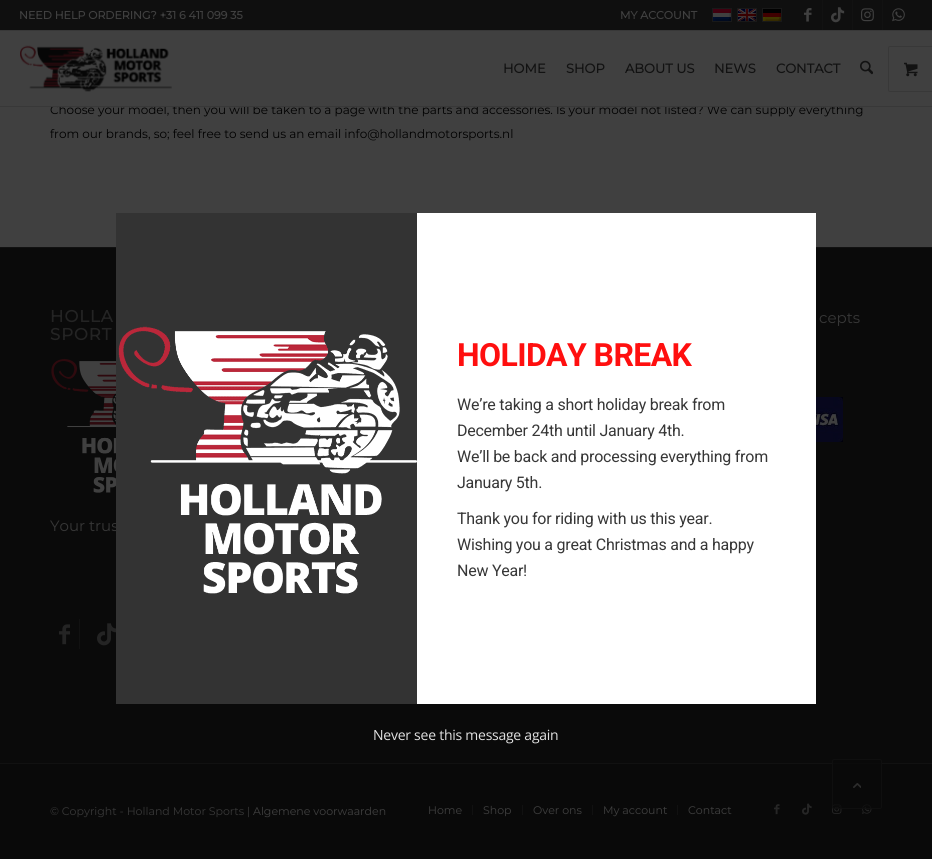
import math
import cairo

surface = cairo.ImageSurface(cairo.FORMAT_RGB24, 932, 859)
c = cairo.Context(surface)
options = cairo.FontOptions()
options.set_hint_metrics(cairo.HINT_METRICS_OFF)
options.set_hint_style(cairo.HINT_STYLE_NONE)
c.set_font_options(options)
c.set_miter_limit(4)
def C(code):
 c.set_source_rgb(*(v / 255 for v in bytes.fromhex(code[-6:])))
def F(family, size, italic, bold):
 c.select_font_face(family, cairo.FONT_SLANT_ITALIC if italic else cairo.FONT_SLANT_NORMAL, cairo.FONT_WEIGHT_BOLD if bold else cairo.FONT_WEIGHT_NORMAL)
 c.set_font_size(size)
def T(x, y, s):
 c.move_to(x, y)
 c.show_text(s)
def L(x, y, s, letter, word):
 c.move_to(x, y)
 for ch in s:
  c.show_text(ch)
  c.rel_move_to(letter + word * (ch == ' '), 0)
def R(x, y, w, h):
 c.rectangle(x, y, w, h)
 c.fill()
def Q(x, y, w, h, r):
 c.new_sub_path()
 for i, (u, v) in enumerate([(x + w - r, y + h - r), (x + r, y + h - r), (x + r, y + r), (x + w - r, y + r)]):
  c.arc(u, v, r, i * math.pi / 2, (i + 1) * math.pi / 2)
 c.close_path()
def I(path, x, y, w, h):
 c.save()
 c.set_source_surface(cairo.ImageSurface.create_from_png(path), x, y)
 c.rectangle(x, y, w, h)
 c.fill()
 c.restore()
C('404040')
c.paint()
C('0f0f0f')
R(0,0,932,30)
C('383838')
R(0,30,932,1)
F('Montserrat',11,0,1)
C('404040')
T(19,19,'NEED HELP ORDERING? +31 6 411 099 35')
T(620,19,'MY ACCOUNT')
c.rectangle(712.5,8.5,19,13)
C('191919')
c.set_line_width(1)
c.stroke()
I('1.png',713,9,18,12)
c.rectangle(737.5,8.5,19,13)
c.stroke()
I('2.png',738,9,18,12)
c.rectangle(762.5,8.5,19,13)
c.stroke()
I('3.png',763,9,18,12)
C('121212')
R(822,0,1,30)
I('4.png',804,8,8,14)
R(852,0,1,30)
I('5.png',831,7,14,16)
R(882,0,1,30)
I('6.png',861,8,13,14)
I('7.png',892,8,13,14)
F('Montserrat Thin',12,0,0)
C('000000')
T(50,114,'Choose your model, then you will be taken to a page with the parts and accessories. Is your model not listed? We can supply everything')
C('383838')
R(0,106,932,1)
I('8.png',20,45,152,47)
F('Montserrat',13,0,1)
C('121212')
T(503,73,'HOME')
T(566,73,'SHOP')
T(625,73,'ABOUT US')
T(714,73,'NEWS')
T(776,73,'CONTACT')
I('9.png',860,60,13,15)
Q(888.5,46.5,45,45,1.5)
C('383838')
c.stroke()
I('10.png',904,62,14,15)
C('404040')
R(53,105,794,1)
F('Montserrat Thin',12,0,0)
C('000000')
T(50,138,'from our brands, so; feel free to send us an email info@hollandmotorsports.nl')
C('0a0a0a')
R(0,248,932,515)
C('111111')
R(0,247,932,1)
F('Montserrat',16.5,0,1)
C('242424')
L(50,322,'HOLLA',1,0)
L(50,340,'SPORT',1,0)
I('11.png',51,358,65,135)
F('Montserrat Thin',15,0,0)
C('373737')
T(50,531,'Your trus')
C('111111')
R(79,619,1,30)
I('12.png',59,624,11,21)
I('13.png',97,623,19,23)
C('373737')
T(819,323,'cepts')
I('14.png',816,397,27,45)
C('090909')
R(0,764,932,95)
C('111111')
R(0,763,932,1)
F('Montserrat Thin',11,0,0)
C('373737')
T(50,815,'© Copyright - Holland Motor Sports |')
C('404040')
T(253,815,'Algemene voorwaarden')
T(428,814,'Home')
C('111111')
R(472,805,1,10)
C('404040')
T(483,814,'Shop')
C('111111')
R(522,805,1,10)
C('404040')
T(533,814,'Over ons')
C('111111')
R(592,805,1,10)
C('404040')
T(603,814,'My account')
C('111111')
R(677,805,1,10)
C('404040')
T(688,814,'Contact')
I('15.png',774,804,6,11)
I('16.png',802,803,10,12)
I('17.png',832,804,10,10)
I('18.png',862,804,10,10)
C('ffffff')
R(417,213,399,491)
C('333333')
R(116,213,301,491)
I('19.png',118,326,299,268)
F('Roboto',32,0,1)
C('ff0f0f')
L(457,366,'HOLIDAY BREAK',-.6,0)
F('Roboto',16,0,0)
C('373737')
L(457,410,'We’re taking a short holiday break from',-.25,0)
L(457,436,'December 24th until January 4th.',-.25,0)
L(457,462,'We’ll be back and processing everything from',-.25,0)
L(457,488,'January 5th.',-.25,0)
L(457,524,'Thank you for riding with us this year.',-.25,0)
L(457,550,'Wishing you a great Christmas and a happy',-.25,0)
L(457,576,'New Year!',-.25,0)
F('Open Sans',14,0,0)
C('e1e1e1')
L(373,740,'Never see this message again',-.25,0)
c.set_source_rgba(0.035,0.035,0.035,0.7)
Q(832,759,50,50,2)
c.fill()
Q(832.5,759.5,49,49,1.5)
c.set_source_rgba(0.067,0.067,0.067,0.7)
c.stroke()
I('20.png',853,783,8,5)
surface.write_to_png('o.png')
